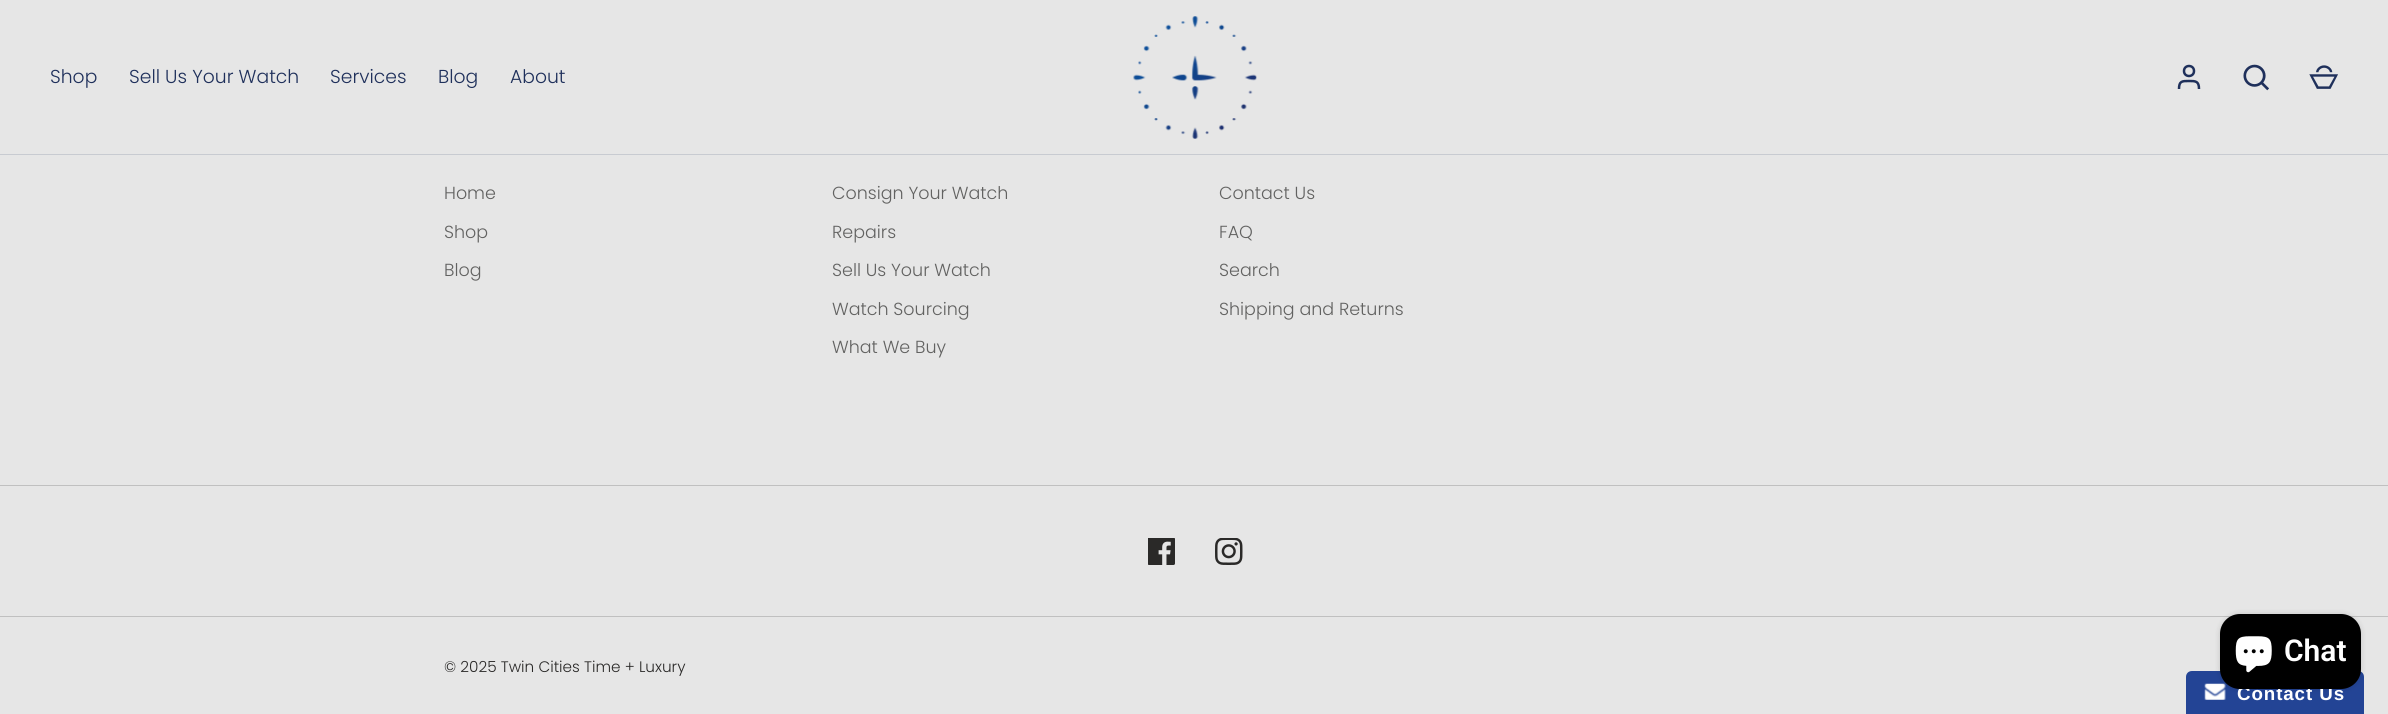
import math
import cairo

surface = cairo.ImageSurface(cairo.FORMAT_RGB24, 2388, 714)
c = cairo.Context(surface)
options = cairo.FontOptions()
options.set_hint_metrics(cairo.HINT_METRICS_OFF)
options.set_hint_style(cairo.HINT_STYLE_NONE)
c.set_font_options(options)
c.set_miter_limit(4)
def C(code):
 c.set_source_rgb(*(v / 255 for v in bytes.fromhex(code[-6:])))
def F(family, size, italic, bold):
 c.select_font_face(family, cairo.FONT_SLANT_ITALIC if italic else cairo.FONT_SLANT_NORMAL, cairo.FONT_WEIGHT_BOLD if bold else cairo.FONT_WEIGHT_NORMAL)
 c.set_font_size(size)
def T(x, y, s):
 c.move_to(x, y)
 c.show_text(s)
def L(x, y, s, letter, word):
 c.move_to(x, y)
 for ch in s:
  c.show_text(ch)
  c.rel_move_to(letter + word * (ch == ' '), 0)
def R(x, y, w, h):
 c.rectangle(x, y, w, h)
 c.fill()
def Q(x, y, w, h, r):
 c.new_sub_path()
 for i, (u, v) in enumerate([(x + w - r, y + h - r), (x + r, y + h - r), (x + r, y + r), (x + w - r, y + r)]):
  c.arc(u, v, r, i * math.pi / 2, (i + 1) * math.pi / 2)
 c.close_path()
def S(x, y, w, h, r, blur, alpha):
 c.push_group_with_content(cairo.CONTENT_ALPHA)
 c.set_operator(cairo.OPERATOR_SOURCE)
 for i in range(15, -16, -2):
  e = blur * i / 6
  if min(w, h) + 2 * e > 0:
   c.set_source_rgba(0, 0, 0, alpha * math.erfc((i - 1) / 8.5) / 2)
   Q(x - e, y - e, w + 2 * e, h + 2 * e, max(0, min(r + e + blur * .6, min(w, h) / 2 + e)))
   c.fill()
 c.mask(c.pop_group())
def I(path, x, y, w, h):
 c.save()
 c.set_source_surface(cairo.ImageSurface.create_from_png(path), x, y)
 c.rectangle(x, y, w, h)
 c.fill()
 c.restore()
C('e6e6e6')
c.paint()
F('Poppins Light',18.75,0,0)
C('1f305b')
T(50,83,'Shop')
T(129,83,'Sell Us Your Watch')
T(330,83,'Services')
T(438,83,'Blog')
T(510,83,'About')
I('1.png',1133,16,124,123)
c.arc(2189,71,5,0,2 * math.pi)
c.set_line_width(2.5)
c.stroke()
c.new_path()
c.move_to(2199,89)
c.curve_to(2199,81,2195.5,81,2189,81)
c.curve_to(2182,81,2179,81,2179,89)
c.stroke()
I('2.png',2243,64,26,27)
I('3.png',2309,65,29,24)
C('c8cbd1')
R(0,154,2388,1)
F('Poppins Light',17.5,0,0)
C('626261')
T(444,199,'Home')
T(444,238,'Shop')
T(444,276,'Blog')
T(832,199,'Consign Your Watch')
T(832,238,'Repairs')
T(832,276,'Sell Us Your Watch')
T(832,315,'Watch Sourcing')
T(832,353,'What We Buy')
T(1219,199,'Contact Us')
T(1219,238,'FAQ')
T(1219,276,'Search')
T(1219,315,'Shipping and Returns')
C('c0c0c0')
R(0,485,2388,1)
I('4.png',1148,538,27,27)
I('5.png',1215,538,28,27)
R(0,616,2388,1)
F('Poppins Light',15.25,0,0)
C('2a2928')
T(444,672,'© 2025 Twin Cities Time + Luxury')
C('234495')
c.new_path()
c.move_to(2192,671)
c.line_to(2358,671)
c.curve_to(2361.5,671,2364,673.5,2364,677)
c.line_to(2364,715)
c.line_to(2186,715)
c.line_to(2186,677)
c.curve_to(2186,673.5,2188.5,671,2192,671)
c.close_path()
c.fill()
I('7.png',2204,683,22,17)
C('000000')
S(2220,614,141,75,20,3,.15)
F('Liberation Sans',18.75,0,1)
C('ffffff')
L(2237,700,'Contact Us',.9,0)
C('000000')
Q(2220,614,141,75,20)
c.fill()
I('6.png',2235,636,37,37)
F('Roboto SemiBold',30,0,0)
C('ffffff')
T(2284,661,'Chat')
surface.write_to_png('o.png')
